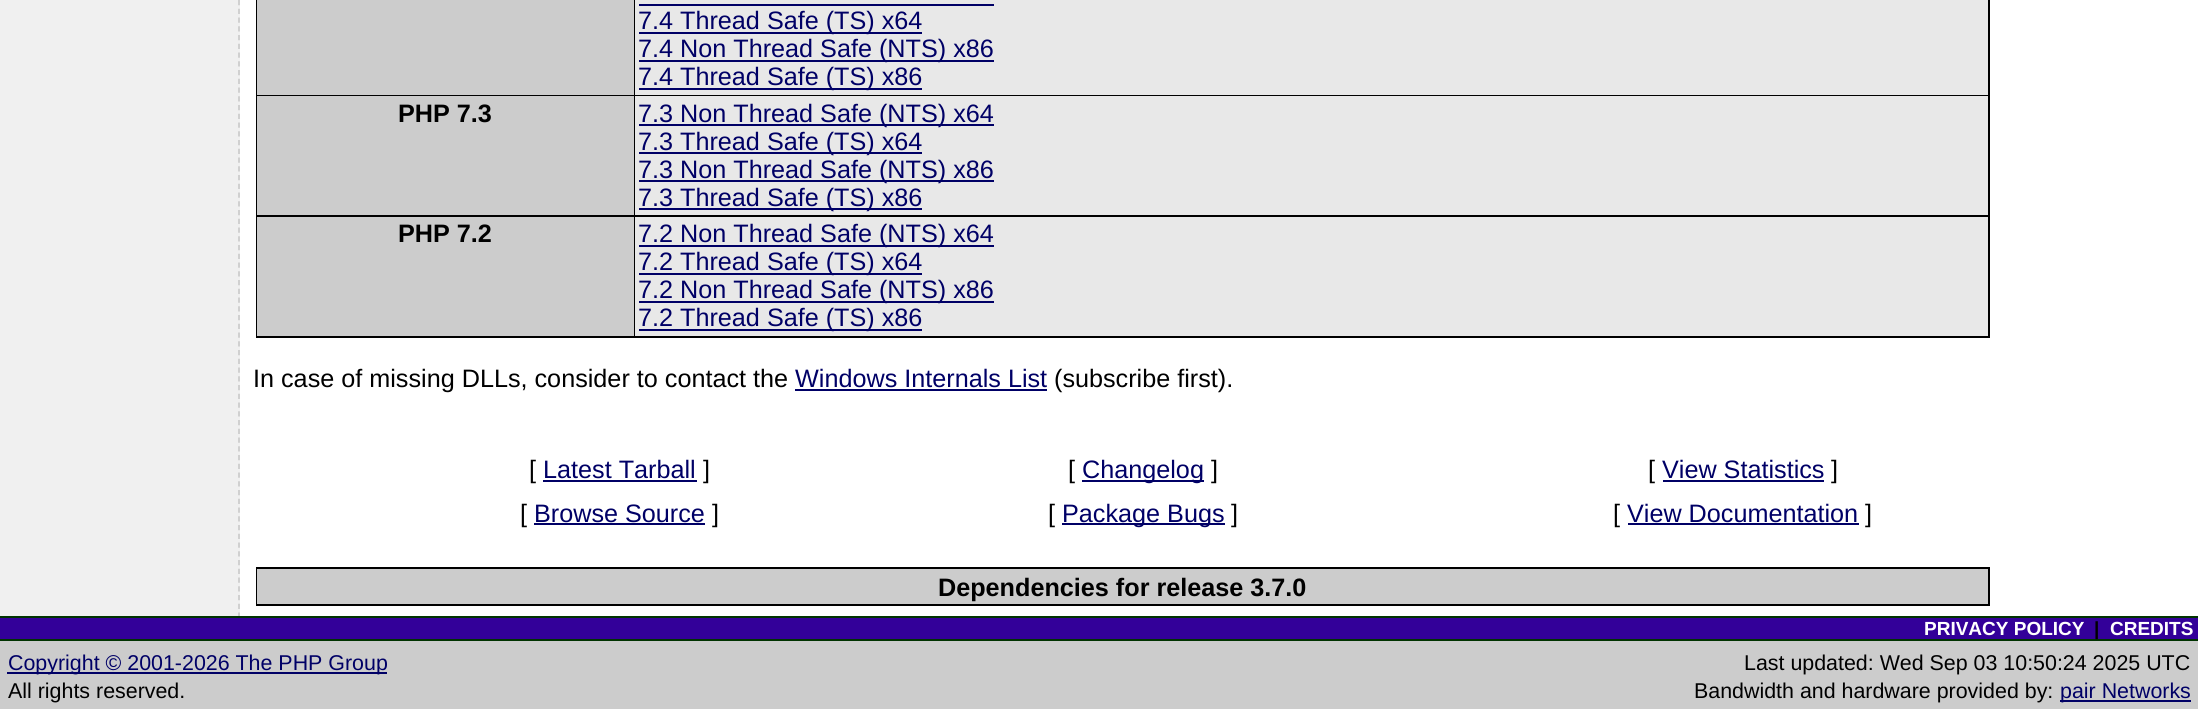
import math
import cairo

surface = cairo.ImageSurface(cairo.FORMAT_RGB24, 2198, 709)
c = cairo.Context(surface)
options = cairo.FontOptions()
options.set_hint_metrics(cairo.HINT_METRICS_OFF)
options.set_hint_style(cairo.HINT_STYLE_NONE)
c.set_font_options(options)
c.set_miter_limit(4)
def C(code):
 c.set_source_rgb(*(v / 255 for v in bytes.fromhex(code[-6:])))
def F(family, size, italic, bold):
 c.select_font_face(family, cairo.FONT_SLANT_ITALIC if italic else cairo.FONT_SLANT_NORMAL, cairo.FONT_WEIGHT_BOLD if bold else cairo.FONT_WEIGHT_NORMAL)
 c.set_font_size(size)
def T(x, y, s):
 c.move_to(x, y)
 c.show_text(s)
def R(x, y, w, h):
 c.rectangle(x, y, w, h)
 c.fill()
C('ffffff')
c.paint()
C('f0f0f0')
R(0,0,240,616)
c.new_path()
c.move_to(239,-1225)
c.line_to(239,616)
C('cccccc')
c.set_line_width(1.8)
c.set_dash([5.25,3.5])
c.stroke()
C('000000')
R(256,0,1734,338)
C('cccccc')
R(257,0,377,95)
C('e8e8e8')
R(635,0,1353,95)
C('000066')
R(639,4,355,2)
R(639,32,283,2)
F('Liberation Sans',25.2,0,0)
T(638,29,'7.4 Thread Safe (TS) x64')
R(639,60,355,2)
T(638,57,'7.4 Non Thread Safe (NTS) x86')
R(639,88,283,2)
T(638,85,'7.4 Thread Safe (TS) x86')
C('cccccc')
R(257,96,377,119)
F('Liberation Sans',25.2,0,1)
C('000000')
T(398,122,'PHP 7.3')
C('e8e8e8')
R(635,96,1353,119)
C('000066')
R(639,124,355,2)
F('Liberation Sans',25.2,0,0)
T(638,122,'7.3 Non Thread Safe (NTS) x64')
R(639,152,283,2)
T(638,150,'7.3 Thread Safe (TS) x64')
R(639,180,355,2)
T(638,178,'7.3 Non Thread Safe (NTS) x86')
R(639,208,283,2)
T(638,206,'7.3 Thread Safe (TS) x86')
C('cccccc')
R(257,217,377,119)
F('Liberation Sans',25.2,0,1)
C('000000')
T(398,242,'PHP 7.2')
C('e8e8e8')
R(635,217,1353,119)
C('000066')
R(639,245,355,2)
F('Liberation Sans',25.2,0,0)
T(638,242,'7.2 Non Thread Safe (NTS) x64')
R(639,273,283,2)
T(638,270,'7.2 Thread Safe (TS) x64')
R(639,301,355,2)
T(638,298,'7.2 Non Thread Safe (NTS) x86')
R(639,329,283,2)
T(638,326,'7.2 Thread Safe (TS) x86')
C('000000')
T(253,387,'In case of missing DLLs, consider to contact the')
C('000066')
T(795,387,'Windows Internals List')
R(795,389,252,2)
C('000000')
T(1054,387,'(subscribe first).')
T(529,478,'[')
C('000066')
T(543,478,'Latest Tarball')
R(543,480,154,2)
C('000000')
T(703,478,']')
T(1068,478,'[')
C('000066')
R(1082,480,122,2)
T(1082,478,'Changelog')
C('000000')
T(1211,478,']')
T(1648,478,'[')
C('000066')
T(1662,478,'View Statistics')
R(1663,480,161,2)
C('000000')
T(1831,478,']')
T(520,522,'[')
C('000066')
T(534,522,'Browse Source')
R(534,523,171,2)
C('000000')
T(712,522,']')
T(1048,522,'[')
C('000066')
R(1062,523,163,2)
T(1062,522,'Package Bugs')
C('000000')
T(1231,522,']')
T(1613,522,'[')
C('000066')
T(1627,522,'View Documentation')
R(1628,523,231,2)
C('000000')
T(1865,522,']')
R(256,567,1734,39)
C('cccccc')
R(257,569,1731,35)
F('Liberation Sans',25.2,0,1)
C('000000')
T(938,596,'Dependencies for release 3.7.0')
C('330099')
R(0,618,2198,21)
C('003300')
R(0,616,2198,2)
R(0,639,2198,2)
F('Liberation Sans',19,0,1)
C('ffffff')
T(1924,635,'PRIVACY POLICY')
C('000000')
T(2094,635,'|')
C('ffffff')
T(2110,635,'CREDITS')
C('cccccc')
R(0,641,2198,68)
C('000066')
R(7,672,380,2)
F('Liberation Sans',21.4,0,0)
T(8,670,'Copyright © 2001-2026 The PHP Group')
C('000000')
T(8,698,'All rights reserved.')
T(1744,670,'Last updated: Wed Sep 03 10:50:24 2025 UTC')
T(1694,698,'Bandwidth and hardware provided by:')
C('000066')
R(2060,700,131,2)
T(2060,698,'pair Networks')
surface.write_to_png('o.png')
